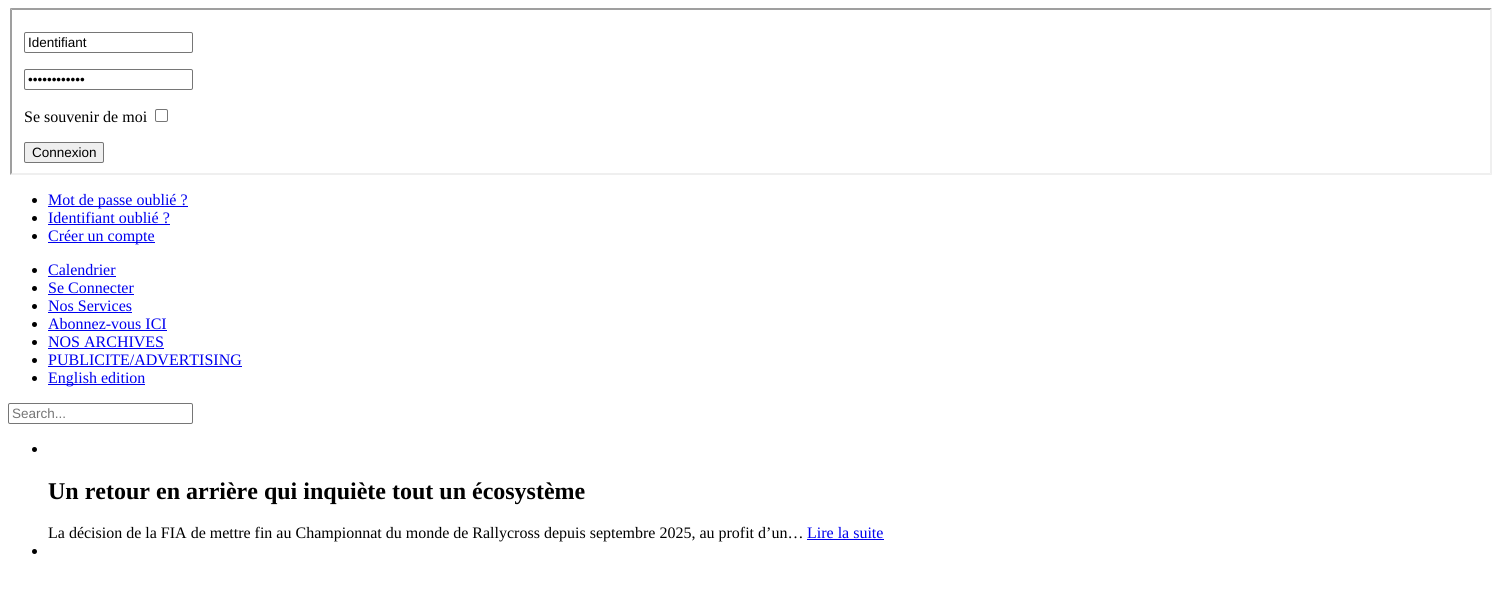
import math
import cairo

surface = cairo.ImageSurface(cairo.FORMAT_RGB24, 1502, 590)
c = cairo.Context(surface)
options = cairo.FontOptions()
options.set_hint_metrics(cairo.HINT_METRICS_OFF)
options.set_hint_style(cairo.HINT_STYLE_NONE)
c.set_font_options(options)
c.set_miter_limit(4)
def C(code):
 c.set_source_rgb(*(v / 255 for v in bytes.fromhex(code[-6:])))
def F(family, size, italic, bold):
 c.select_font_face(family, cairo.FONT_SLANT_ITALIC if italic else cairo.FONT_SLANT_NORMAL, cairo.FONT_WEIGHT_BOLD if bold else cairo.FONT_WEIGHT_NORMAL)
 c.set_font_size(size)
def T(x, y, s):
 c.move_to(x, y)
 c.show_text(s)
def R(x, y, w, h):
 c.rectangle(x, y, w, h)
 c.fill()
def Q(x, y, w, h, r):
 c.new_sub_path()
 for i, (u, v) in enumerate([(x + w - r, y + h - r), (x + r, y + h - r), (x + r, y + r), (x + w - r, y + r)]):
  c.arc(u, v, r, i * math.pi / 2, (i + 1) * math.pi / 2)
 c.close_path()
C('ffffff')
c.paint()
C('9f9f9f')
c.new_path()
c.move_to(10,8)
c.line_to(1492,8)
c.line_to(1490,10)
c.line_to(12,10)
c.close_path()
c.fill()
C('efefef')
c.new_path()
c.move_to(1492,8)
c.line_to(1492,175)
c.line_to(1490,173)
c.line_to(1490,10)
c.close_path()
c.fill()
c.new_path()
c.move_to(1492,175)
c.line_to(10,175)
c.line_to(12,173)
c.line_to(1490,173)
c.close_path()
c.fill()
C('9f9f9f')
c.new_path()
c.move_to(10,175)
c.line_to(10,8)
c.line_to(12,10)
c.line_to(12,173)
c.close_path()
c.fill()
Q(24.5,32.5,168,20,1.5)
C('767676')
c.set_line_width(1)
c.stroke()
F('Liberation Sans',13.5,0,0)
C('000000')
T(28,47,'Identifiant')
Q(24.5,69.5,168,20,1.5)
C('767676')
c.stroke()
C('000000')
T(28,84,'••••••••••••')
F('Liberation Serif',16,0,0)
T(24,122,'Se souvenir de moi')
Q(155.5,109.5,12,12,1.5)
C('767676')
c.stroke()
C('efefef')
Q(24.5,142.5,79,20,1.5)
c.fill_preserve()
C('767676')
c.stroke()
F('Liberation Sans',13.5,0,0)
C('000000')
T(32,157,'Connexion')
c.new_path()
c.arc(34.5,200.5,2.5,0,2 * math.pi)
c.fill()
C('0000ee')
R(48,206,140,1)
F('Liberation Serif',16,0,0)
T(48,205,'Mot de passe oublié ?')
C('000000')
c.new_path()
c.arc(34.5,218.5,2.5,0,2 * math.pi)
c.fill()
C('0000ee')
T(48,223,'Identifiant oublié ?')
R(48,224,122,1)
C('000000')
c.new_path()
c.arc(34.5,236.5,2.5,0,2 * math.pi)
c.fill()
C('0000ee')
R(48,242,107,1)
T(48,241,'Créer un compte')
C('000000')
c.new_path()
c.arc(34.5,270.5,2.5,0,2 * math.pi)
c.fill()
C('0000ee')
T(48,275,'Calendrier')
R(48,276,68,1)
C('000000')
c.new_path()
c.arc(34.5,288.5,2.5,0,2 * math.pi)
c.fill()
C('0000ee')
T(48,293,'Se Connecter')
R(48,294,86,1)
C('000000')
c.new_path()
c.arc(34.5,306.5,2.5,0,2 * math.pi)
c.fill()
C('0000ee')
T(48,311,'Nos Services')
R(48,312,84,1)
C('000000')
c.new_path()
c.arc(34.5,324.5,2.5,0,2 * math.pi)
c.fill()
C('0000ee')
T(48,329,'Abonnez-vous ICI')
R(48,330,119,1)
C('000000')
c.new_path()
c.arc(34.5,342.5,2.5,0,2 * math.pi)
c.fill()
C('0000ee')
T(48,347,'NOS ARCHIVES')
R(48,348,116,1)
C('000000')
c.new_path()
c.arc(34.5,360.5,2.5,0,2 * math.pi)
c.fill()
C('0000ee')
T(48,365,'PUBLICITE/ADVERTISING')
R(48,366,194,1)
C('000000')
c.new_path()
c.arc(34.5,378.5,2.5,0,2 * math.pi)
c.fill()
C('0000ee')
R(48,384,97,1)
T(48,383,'English edition')
Q(8.5,403.5,184,20,1.5)
C('767676')
c.stroke()
F('Liberation Sans',13.5,0,0)
C('757575')
T(12,418,'Search...')
C('000000')
c.new_path()
c.arc(34.5,449.5,2.5,0,2 * math.pi)
c.fill()
F('Liberation Serif',24,0,1)
T(48,499,'Un retour en arrière qui inquiète tout un écosystème')
F('Liberation Serif',16,0,0)
T(48,538,'La décision de la FIA de mettre fin au Championnat du monde de Rallycross depuis septembre 2025, au profit d’un…')
C('0000ee')
T(807,538,'Lire la suite')
R(807,539,77,1)
C('000000')
c.new_path()
c.arc(34.5,551.5,2.5,0,2 * math.pi)
c.fill()
surface.write_to_png('o.png')
